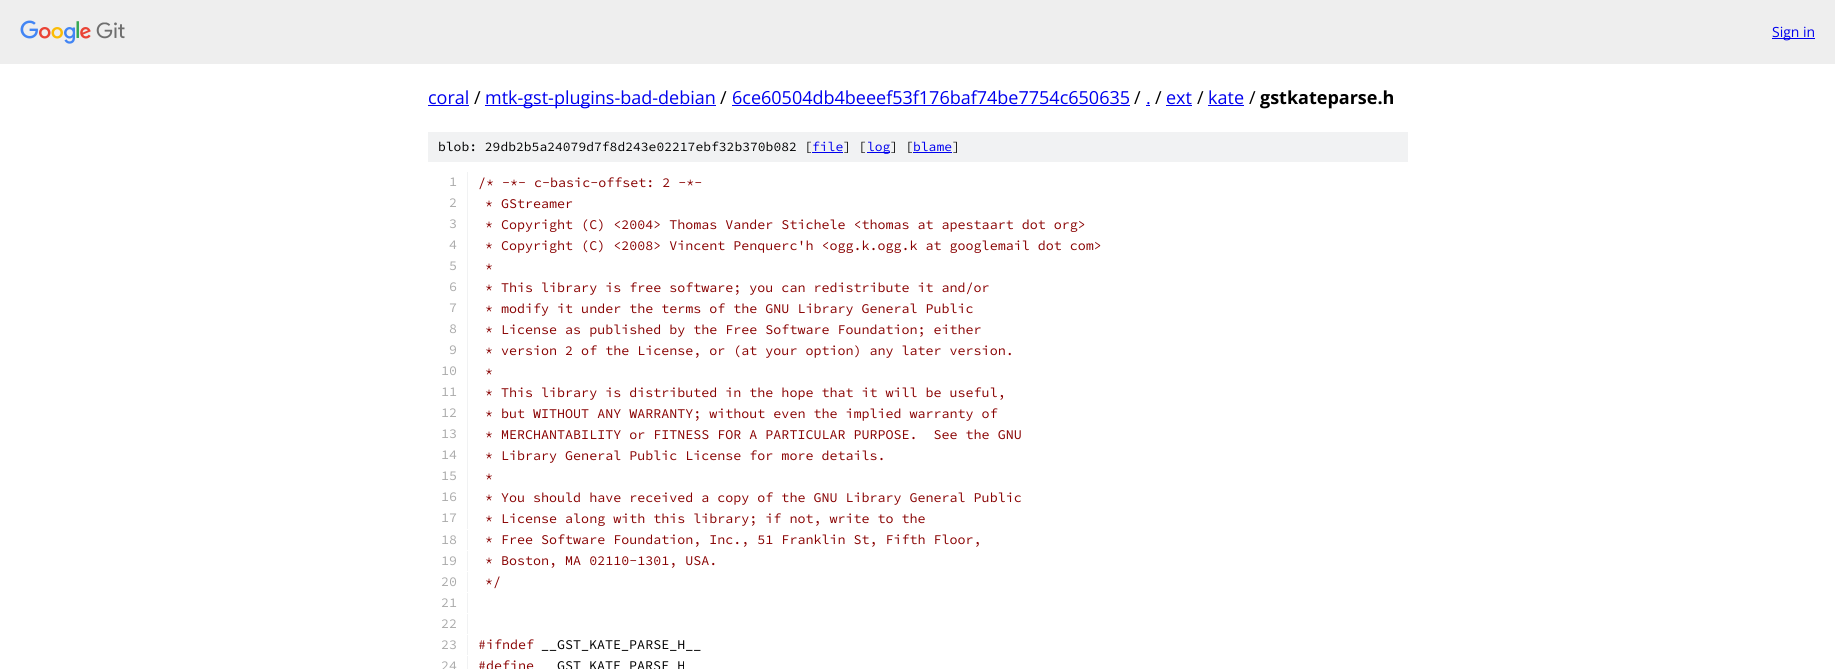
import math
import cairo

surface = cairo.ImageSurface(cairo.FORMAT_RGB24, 1835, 669)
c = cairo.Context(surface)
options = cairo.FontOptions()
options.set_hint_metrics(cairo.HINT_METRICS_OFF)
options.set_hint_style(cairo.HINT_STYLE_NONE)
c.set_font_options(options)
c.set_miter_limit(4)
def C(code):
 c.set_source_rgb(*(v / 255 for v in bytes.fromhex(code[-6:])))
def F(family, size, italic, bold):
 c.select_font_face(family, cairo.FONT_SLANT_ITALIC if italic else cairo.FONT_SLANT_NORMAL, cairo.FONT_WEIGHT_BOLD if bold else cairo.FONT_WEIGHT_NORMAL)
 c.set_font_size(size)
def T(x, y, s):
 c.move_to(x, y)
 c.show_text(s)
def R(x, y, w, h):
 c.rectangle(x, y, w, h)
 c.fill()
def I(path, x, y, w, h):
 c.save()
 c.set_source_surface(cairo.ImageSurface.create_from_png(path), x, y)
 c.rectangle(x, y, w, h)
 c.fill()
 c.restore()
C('ffffff')
c.paint()
C('eeeeee')
R(0,0,1835,64)
I('1.png',20,20,105,24)
C('0000ee')
R(1772,38,43,1)
F('Open Sans',14,0,0)
T(1772,37,'Sign in')
F('Open Sans',18,0,0)
T(428,104,'coral')
R(428,105,41,1)
C('000000')
T(474,104,'/')
C('0000ee')
R(485,105,231,1)
T(485,104,'mtk-gst-plugins-bad-debian')
C('000000')
T(720,104,'/')
C('0000ee')
T(732,104,'6ce60504db4beeef53f176baf74be7754c650635')
R(732,105,398,1)
C('000000')
T(1134,104,'/')
C('0000ee')
T(1146,104,'.')
R(1146,105,4,1)
C('000000')
T(1155,104,'/')
C('0000ee')
T(1166,104,'ext')
R(1166,105,26,1)
C('000000')
T(1197,104,'/')
C('0000ee')
T(1208,104,'kate')
R(1208,105,36,1)
C('000000')
T(1249,104,'/')
F('Open Sans',18,0,1)
T(1260,104,'gstkateparse.h')
C('f1f2f3')
R(428,132,980,30)
F('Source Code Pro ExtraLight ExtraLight',13,0,0)
C('000000')
T(438,151,'blob: 29db2b5a24079d7f8d243e02217ebf32b370b082 [')
C('0000ee')
T(812,151,'file')
R(812,152,31,1)
C('000000')
T(843,151,'] [')
C('0000ee')
R(867,152,23,1)
T(867,151,'log')
C('000000')
T(890,151,'] [')
C('0000ee')
T(913,151,'blame')
R(913,152,39,1)
C('000000')
T(952,151,']')
C('f1f2f3')
R(467,172,1,357)
F('Source Code Pro ExtraLight ExtraLight',13.35,0,0)
C('aaaaaa')
T(449,186,'1')
C('880000')
T(478,187,'/* -*- c-basic-offset: 2 -*-')
C('aaaaaa')
T(449,207,'2')
C('880000')
T(485,208,'* GStreamer')
C('aaaaaa')
T(449,228,'3')
C('880000')
T(485,229,'* Copyright (C) <2004> Thomas Vander Stichele <thomas at apestaart dot org>')
C('aaaaaa')
T(449,249,'4')
C('880000')
T(485,250,'* Copyright (C) <2008> Vincent Penquerc\'h <ogg.k.ogg.k at googlemail dot com>')
C('aaaaaa')
T(449,270,'5')
C('880000')
T(485,271,'*')
C('aaaaaa')
T(449,291,'6')
C('880000')
T(485,292,'* This library is free software; you can redistribute it and/or')
C('aaaaaa')
T(449,312,'7')
C('880000')
T(485,313,'* modify it under the terms of the GNU Library General Public')
C('aaaaaa')
T(449,333,'8')
C('880000')
T(485,334,'* License as published by the Free Software Foundation; either')
C('aaaaaa')
T(449,354,'9')
C('880000')
T(485,355,'* version 2 of the License, or (at your option) any later version.')
C('aaaaaa')
T(441,375,'10')
C('880000')
T(485,376,'*')
C('aaaaaa')
T(441,396,'11')
C('880000')
T(485,397,'* This library is distributed in the hope that it will be useful,')
C('aaaaaa')
T(441,417,'12')
C('880000')
T(485,418,'* but WITHOUT ANY WARRANTY; without even the implied warranty of')
C('aaaaaa')
T(441,438,'13')
C('880000')
T(485,439,'* MERCHANTABILITY or FITNESS FOR A PARTICULAR PURPOSE.  See the GNU')
C('aaaaaa')
T(441,459,'14')
C('880000')
T(485,460,'* Library General Public License for more details.')
C('aaaaaa')
T(441,480,'15')
C('880000')
T(485,481,'*')
C('aaaaaa')
T(441,501,'16')
C('880000')
T(485,502,'* You should have received a copy of the GNU Library General Public')
C('aaaaaa')
T(441,522,'17')
C('880000')
T(485,523,'* License along with this library; if not, write to the')
C('f1f2f3')
R(467,530,1,20)
C('aaaaaa')
T(441,544,'18')
C('880000')
T(485,544,'* Free Software Foundation, Inc., 51 Franklin St, Fifth Floor,')
C('f1f2f3')
R(467,551,1,20)
C('aaaaaa')
T(441,565,'19')
C('880000')
T(485,565,'* Boston, MA 02110-1301, USA.')
C('f1f2f3')
R(467,572,1,20)
C('aaaaaa')
T(441,586,'20')
C('880000')
T(485,586,'*/')
C('f1f2f3')
R(467,593,1,20)
C('aaaaaa')
T(441,607,'21')
C('f1f2f3')
R(467,614,1,20)
C('aaaaaa')
T(441,628,'22')
C('f1f2f3')
R(467,635,1,20)
C('aaaaaa')
T(441,649,'23')
C('880000')
T(478,649,'#ifndef')
C('000000')
T(541,649,'__GST_KATE_PARSE_H__')
C('f1f2f3')
R(467,656,1,13)
C('aaaaaa')
T(441,670,'24')
C('880000')
T(478,670,'#define')
C('000000')
T(557,670,'GST_KATE_PARSE_H')
surface.write_to_png('o.png')
